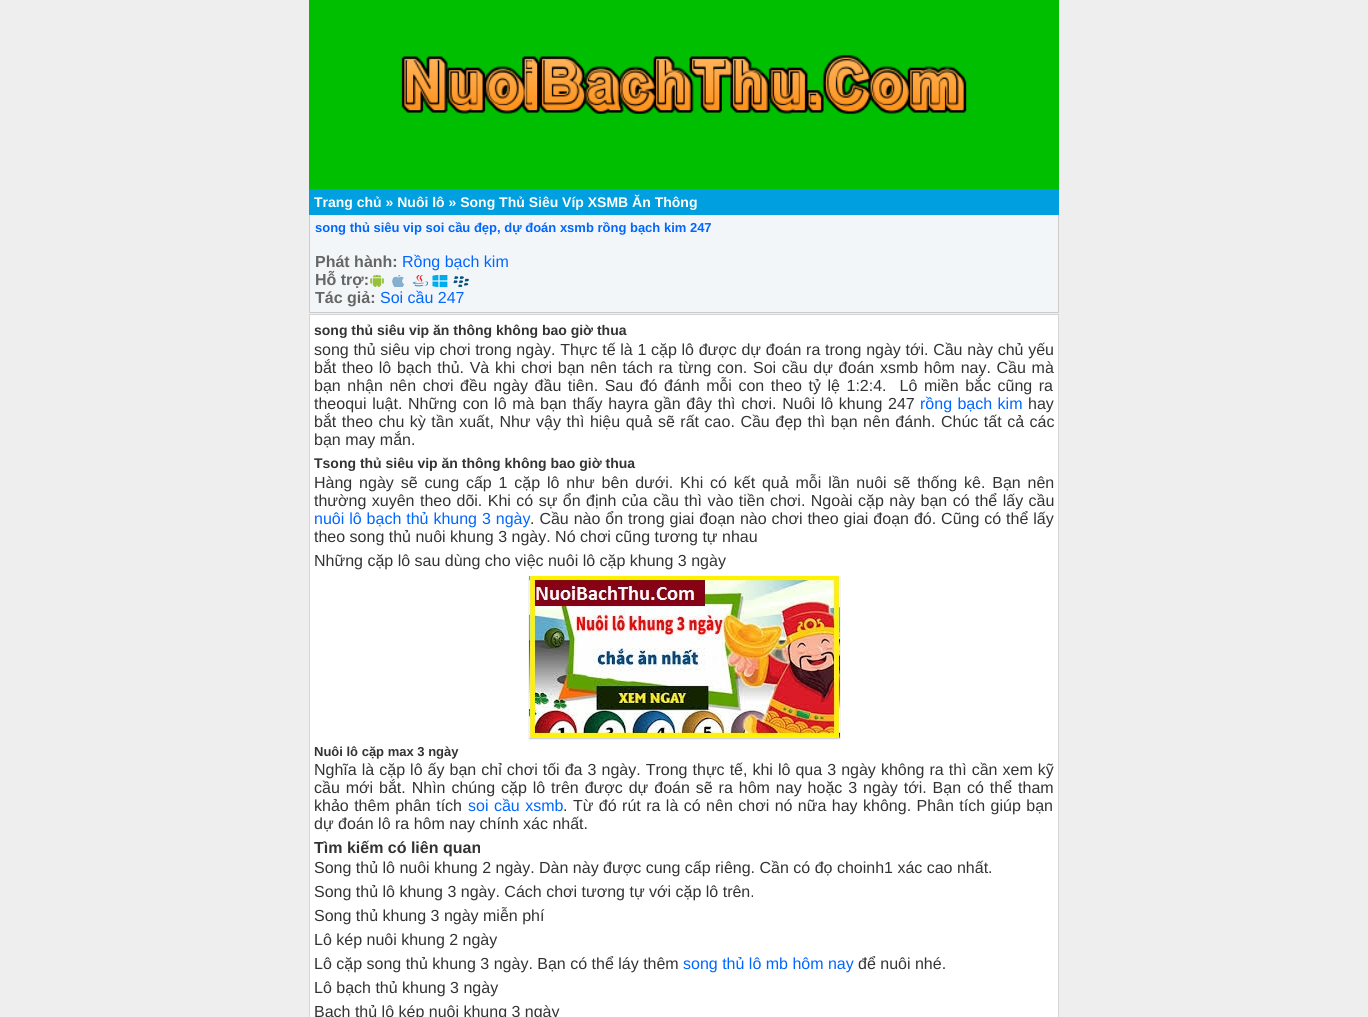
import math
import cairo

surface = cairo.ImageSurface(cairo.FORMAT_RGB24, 1368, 1017)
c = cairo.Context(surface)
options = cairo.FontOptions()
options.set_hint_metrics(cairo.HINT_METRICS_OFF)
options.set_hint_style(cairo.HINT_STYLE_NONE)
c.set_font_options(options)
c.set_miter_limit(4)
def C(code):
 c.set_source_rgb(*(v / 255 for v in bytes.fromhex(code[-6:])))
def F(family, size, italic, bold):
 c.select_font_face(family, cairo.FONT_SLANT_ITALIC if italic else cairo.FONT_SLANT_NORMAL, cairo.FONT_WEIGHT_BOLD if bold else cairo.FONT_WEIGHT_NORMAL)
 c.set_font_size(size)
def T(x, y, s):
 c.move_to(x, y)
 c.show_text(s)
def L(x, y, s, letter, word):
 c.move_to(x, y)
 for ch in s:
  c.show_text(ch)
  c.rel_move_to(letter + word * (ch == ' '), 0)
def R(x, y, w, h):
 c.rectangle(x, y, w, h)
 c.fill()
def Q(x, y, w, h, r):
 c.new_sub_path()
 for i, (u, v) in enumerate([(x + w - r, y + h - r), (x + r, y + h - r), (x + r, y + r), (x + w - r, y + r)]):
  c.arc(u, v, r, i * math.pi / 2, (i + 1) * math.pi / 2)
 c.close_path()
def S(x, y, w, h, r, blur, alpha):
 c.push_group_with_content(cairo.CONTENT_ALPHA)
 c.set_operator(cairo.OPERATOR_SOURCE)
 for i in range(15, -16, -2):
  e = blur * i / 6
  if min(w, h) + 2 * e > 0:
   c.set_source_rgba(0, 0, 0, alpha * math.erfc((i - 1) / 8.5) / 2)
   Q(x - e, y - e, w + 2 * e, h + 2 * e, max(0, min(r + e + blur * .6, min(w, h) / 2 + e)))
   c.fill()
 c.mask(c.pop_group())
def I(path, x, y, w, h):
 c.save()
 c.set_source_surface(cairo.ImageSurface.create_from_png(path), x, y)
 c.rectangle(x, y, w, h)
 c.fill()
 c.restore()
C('eeeeee')
c.paint()
C('00bf00')
R(309,0,750,189)
I('1.png',401,55,566,59)
C('009fdf')
R(309,189,750,26)
F('Liberation Sans',14,0,1)
C('ffffff')
T(314,207,'Trang chủ » Nuôi lô » Song Thủ Siêu Víp XSMB Ăn Thông')
C('f2f6f8')
R(310,215,748,97)
C('cccccc')
R(1058,215,1,98)
R(309,312,750,1)
R(309,215,1,98)
F('Liberation Sans',13,0,1)
C('0066ff')
T(315,232,'song thủ siêu vip soi cầu đẹp, dự đoán xsmb rồng bạch kim 247')
F('Liberation Sans',16,0,1)
C('666666')
T(315,267,'Phát hành:')
F('Liberation Sans',16,0,0)
C('0066ff')
T(402,267,'Rồng bạch kim')
F('Liberation Sans',16,0,1)
C('666666')
T(315,285,'Hỗ trợ:')
I('2.png',370,275,14,12)
I('3.png',392,275,12,12)
I('4.png',412,275,16,12)
I('5.png',432,275,16,12)
I('6.png',453,276,16,11)
T(315,303,'Tác giả:')
F('Liberation Sans',16,0,0)
C('0066ff')
T(380,303,'Soi cầu 247')
C('ffffff')
c.rectangle(309.5,314.5,749,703)
c.fill_preserve()
C('d5d5d5')
c.set_line_width(1)
c.stroke()
F('Liberation Sans',14,0,1)
C('333333')
T(314,335,'song thủ siêu vip ăn thông không bao giờ thua')
F('Liberation Sans',16,0,0)
L(314,355,'song thủ siêu vip chơi trong ngày. Thực tế là 1 cặp lô được dự đoán ra trong ngày tới. Cầu này chủ yếu',0,.25)
L(314,373,'bắt theo lô bạch thủ. Và khi chơi bạn nên tách ra từng con. Soi cầu dự đoán xsmb hôm nay. Cầu mà',0,1.25)
L(314,391,'bạn nhận nên chơi đều ngày đầu tiên. Sau đó đánh mỗi con theo tỷ lệ 1:2:4.  Lô miền bắc cũng ra',0,2.1)
L(314,409,'theoqui luật. Những con lô mà bạn thấy hayra gần đây thì chơi. Nuôi lô khung 247',0,1.2)
C('0066ff')
L(920,409,'rồng bạch kim',0,1)
C('333333')
T(1028,409,'hay')
L(314,427,'bắt theo chu kỳ tần xuất, Như vậy thì hiệu quả sẽ rất cao. Cầu đẹp thì bạn nên đánh. Chúc tất cả các',0,1.1)
T(314,445,'bạn may mắn.')
F('Liberation Sans',14,0,1)
T(314,468,'Tsong thủ siêu vip ăn thông không bao giờ thua')
F('Liberation Sans',16,0,0)
L(314,488,'Hàng ngày sẽ cung cấp 1 cặp lô như bên dưới. Khi có kết quả mỗi lần nuôi sẽ thống kê. Bạn nên',0,2.4)
L(314,506,'thường xuyên theo dõi. Khi có sự ổn định của cầu thì vào tiền chơi. Ngoài cặp này bạn có thể lấy cầu',0,1)
C('0066ff')
L(314,524,'nuôi lô bạch thủ khung 3 ngày',0,.5)
C('333333')
L(530,524,'. Cầu nào ổn trong giai đoạn nào chơi theo giai đoạn đó. Cũng có thể lấy',0,.5)
T(314,542,'theo song thủ nuôi khung 3 ngày. Nó chơi cũng tương tự nhau')
T(314,566,'Những cặp lô sau dùng cho việc nuôi lô cặp khung 3 ngày')
C('000000')
S(529,577,311,162,0,.5,.2)
I('7.png',529,576,311,162)
F('Liberation Sans',13,0,1)
C('333333')
T(314,756,'Nuôi lô cặp max 3 ngày')
F('Liberation Sans',16,0,0)
L(314,775,'Nghĩa là cặp lô ấy bạn chỉ chơi tối đa 3 ngày. Trong thực tế, khi lô qua 3 ngày không ra thì cần xem kỹ',0,.6)
L(314,793,'cầu mới bắt. Nhìn chúng cặp lô trên được dự đoán sẽ ra hôm nay hoặc 3 ngày tới. Bạn có thể tham',0,1.5)
L(314,811,'khảo thêm phân tích',0,1)
C('0066ff')
L(468,811,'soi cầu xsmb',0,1)
C('333333')
L(563,811,'. Từ đó rút ra là có nên chơi nó nữa hay không. Phân tích giúp bạn',0,1)
T(314,829,'dự đoán lô ra hôm nay chính xác nhất.')
F('Liberation Sans',16,0,1)
T(314,853,'Tìm kiếm có liên quan')
F('Liberation Sans',16,0,0)
T(314,873,'Song thủ lô nuôi khung 2 ngày. Dàn này được cung cấp riêng. Cần có đọ choinh1 xác cao nhất.')
T(314,897,'Song thủ lô khung 3 ngày. Cách chơi tương tự với cặp lô trên.')
T(314,921,'Song thủ khung 3 ngày miễn phí')
T(314,945,'Lô kép nuôi khung 2 ngày')
T(314,969,'Lô cặp song thủ khung 3 ngày. Bạn có thể láy thêm')
C('0066ff')
T(683,969,'song thủ lô mb hôm nay')
C('333333')
T(858,969,'để nuôi nhé.')
T(314,993,'Lô bạch thủ khung 3 ngày')
T(314,1017,'Bạch thủ lô kép nuôi khung 3 ngày')
surface.write_to_png('o.png')
